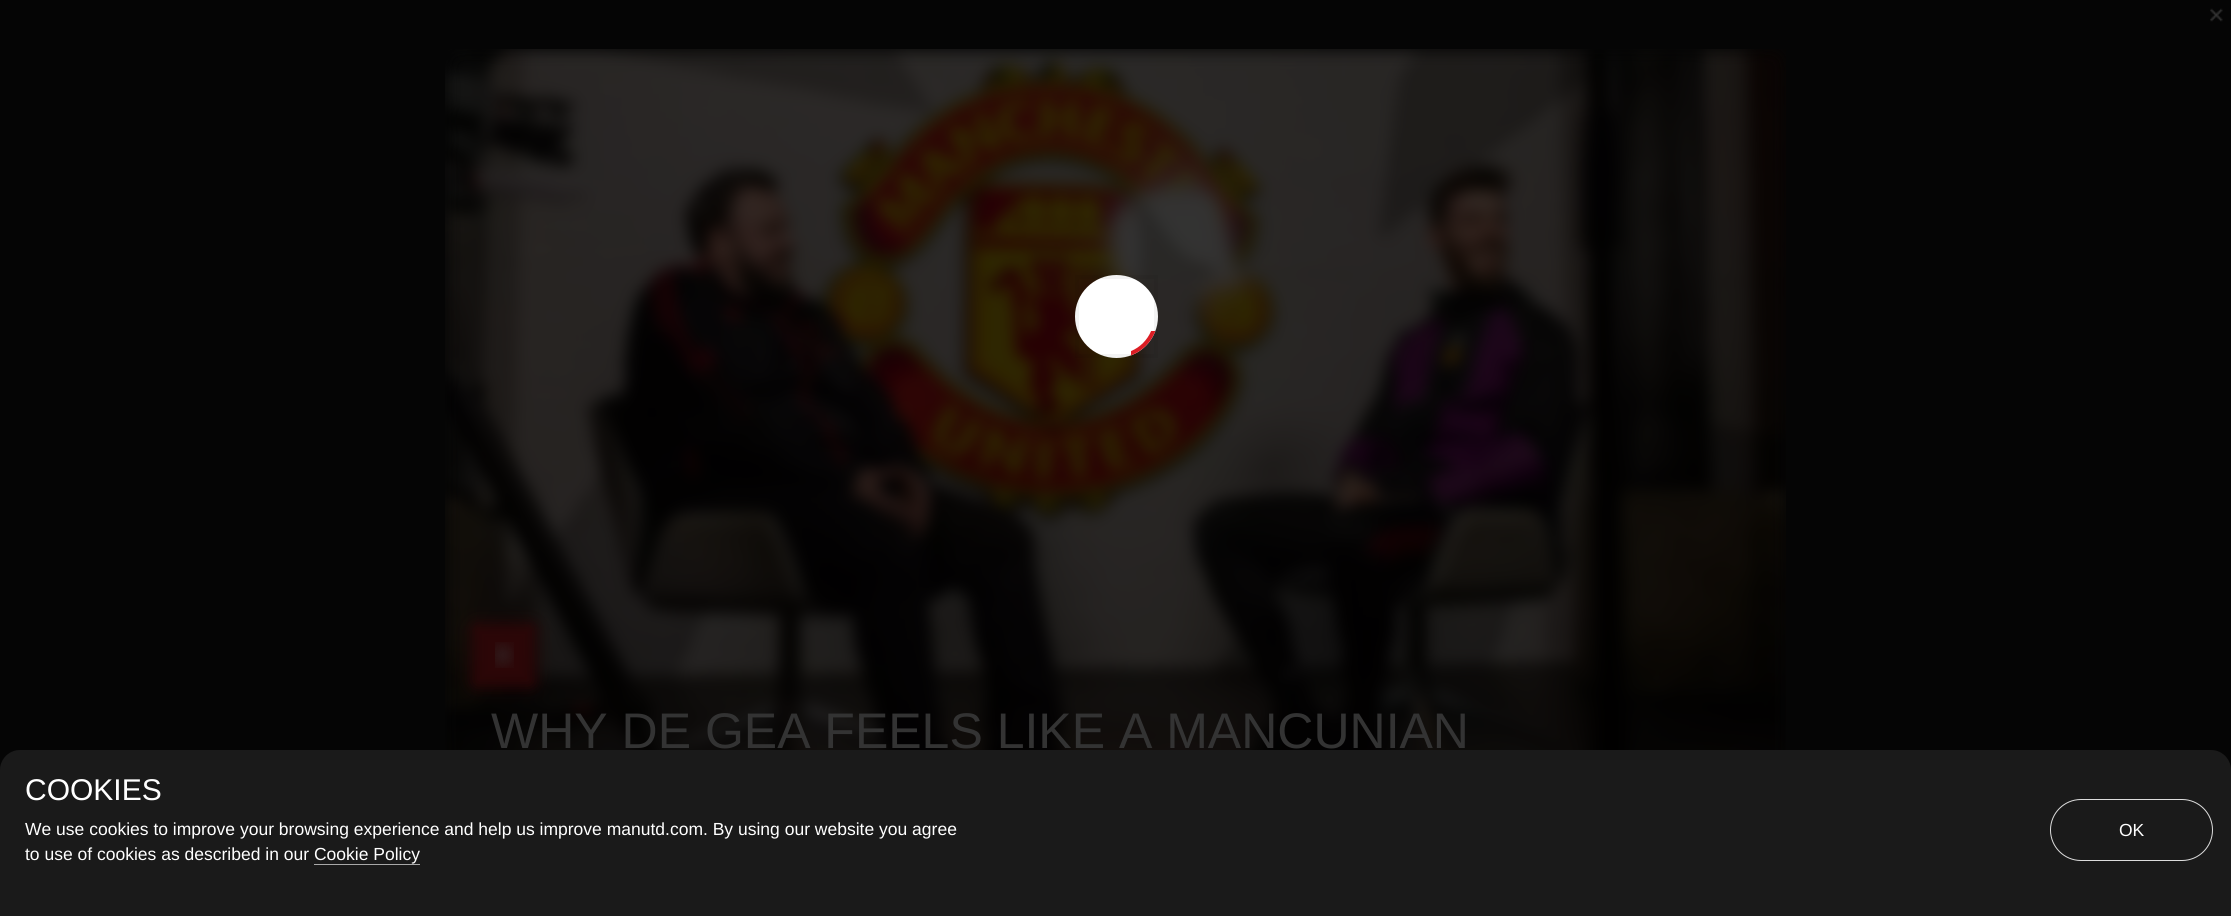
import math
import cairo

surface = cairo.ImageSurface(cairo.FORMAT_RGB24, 2231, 916)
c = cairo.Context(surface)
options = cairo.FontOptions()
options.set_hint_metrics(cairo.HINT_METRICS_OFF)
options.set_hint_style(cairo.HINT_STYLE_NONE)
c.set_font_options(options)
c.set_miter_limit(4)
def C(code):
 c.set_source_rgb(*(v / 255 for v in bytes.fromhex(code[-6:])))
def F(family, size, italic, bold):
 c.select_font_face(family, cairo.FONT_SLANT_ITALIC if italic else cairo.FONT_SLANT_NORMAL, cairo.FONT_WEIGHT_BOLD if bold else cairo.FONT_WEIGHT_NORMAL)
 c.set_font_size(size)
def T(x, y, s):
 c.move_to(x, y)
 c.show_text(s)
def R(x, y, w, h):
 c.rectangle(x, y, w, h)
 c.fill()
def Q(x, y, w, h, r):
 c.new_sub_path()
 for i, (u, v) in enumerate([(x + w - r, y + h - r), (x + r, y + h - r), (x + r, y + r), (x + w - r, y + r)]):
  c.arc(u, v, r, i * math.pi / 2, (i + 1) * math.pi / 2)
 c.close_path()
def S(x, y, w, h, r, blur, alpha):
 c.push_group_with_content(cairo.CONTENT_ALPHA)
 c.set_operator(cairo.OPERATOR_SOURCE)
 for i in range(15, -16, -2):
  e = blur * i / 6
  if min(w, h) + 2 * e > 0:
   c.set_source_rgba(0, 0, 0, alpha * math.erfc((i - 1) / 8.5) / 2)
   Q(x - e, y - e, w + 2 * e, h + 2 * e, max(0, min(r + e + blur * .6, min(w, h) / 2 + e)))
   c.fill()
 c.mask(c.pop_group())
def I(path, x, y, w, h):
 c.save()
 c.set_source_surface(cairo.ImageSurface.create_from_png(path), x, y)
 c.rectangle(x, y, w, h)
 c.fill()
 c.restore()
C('050505')
c.paint()
I('1.png',2210,8,13,14)
I('2.png',445,49,1341,701)
C('ffffff')
c.arc(1116.5,316.5,41.5,0,2 * math.pi)
c.fill()
c.rectangle(1077,277,79,79)
c.set_source_rgba(0,0,0,0.05)
c.set_line_width(4)
c.stroke()
c.save()
c.rectangle(1131,331,69,69)
c.clip()
c.arc(1116.5,316.5,39.5,0,2 * math.pi)
C('db1d24')
c.stroke()
c.restore()
C('2c0607')
S(471,623,65,65,5,7.5,1)
I('3.png',495,642,19,26)
F('Liberation Sans',50,0,0)
C('333333')
T(491,748,'WHY DE GEA FEELS LIKE A MANCUNIAN')
C('1a1a1a')
c.new_path()
c.move_to(20,750)
c.line_to(2211,750)
c.curve_to(2222,750,2231,759,2231,770)
c.line_to(2231,916)
c.line_to(0,916)
c.line_to(0,770)
c.curve_to(0,759,9,750,20,750)
c.close_path()
c.fill()
F('Liberation Sans',30,0,0)
C('ffffff')
T(25,800,'COOKIES')
F('Liberation Sans',17.5,0,0)
T(25,835,'We use cookies to improve your browsing experience and help us improve manutd.com. By using our website you agree')
T(25,860,'to use of cookies as described in our Cookie Policy')
C('a8a8a8')
R(314,864,106,1)
Q(2050.5,799.5,162,61,30.5)
C('dddddd')
c.set_line_width(1)
c.stroke()
C('ffffff')
T(2119,836,'OK')
surface.write_to_png('o.png')
